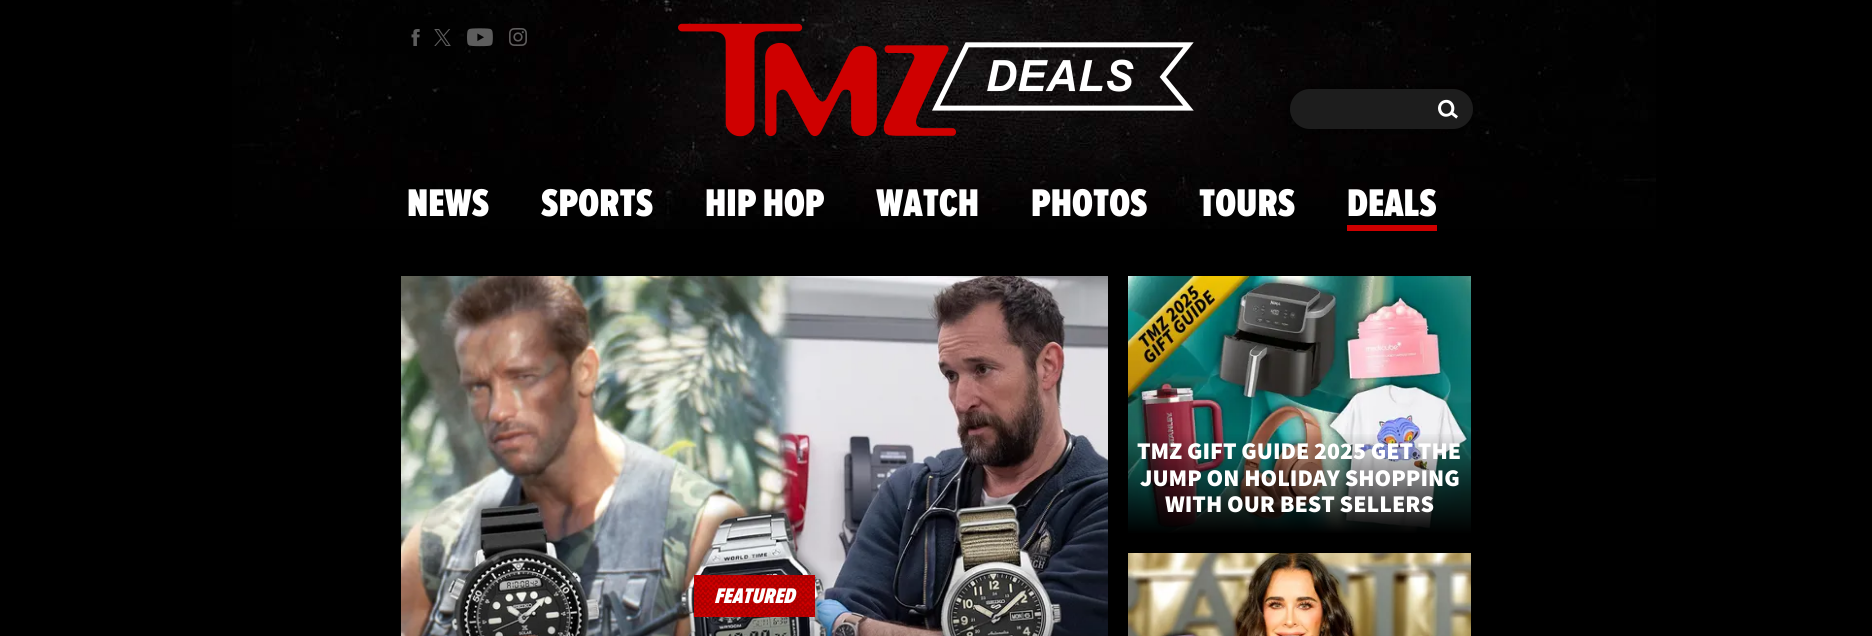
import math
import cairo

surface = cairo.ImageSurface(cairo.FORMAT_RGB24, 1872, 636)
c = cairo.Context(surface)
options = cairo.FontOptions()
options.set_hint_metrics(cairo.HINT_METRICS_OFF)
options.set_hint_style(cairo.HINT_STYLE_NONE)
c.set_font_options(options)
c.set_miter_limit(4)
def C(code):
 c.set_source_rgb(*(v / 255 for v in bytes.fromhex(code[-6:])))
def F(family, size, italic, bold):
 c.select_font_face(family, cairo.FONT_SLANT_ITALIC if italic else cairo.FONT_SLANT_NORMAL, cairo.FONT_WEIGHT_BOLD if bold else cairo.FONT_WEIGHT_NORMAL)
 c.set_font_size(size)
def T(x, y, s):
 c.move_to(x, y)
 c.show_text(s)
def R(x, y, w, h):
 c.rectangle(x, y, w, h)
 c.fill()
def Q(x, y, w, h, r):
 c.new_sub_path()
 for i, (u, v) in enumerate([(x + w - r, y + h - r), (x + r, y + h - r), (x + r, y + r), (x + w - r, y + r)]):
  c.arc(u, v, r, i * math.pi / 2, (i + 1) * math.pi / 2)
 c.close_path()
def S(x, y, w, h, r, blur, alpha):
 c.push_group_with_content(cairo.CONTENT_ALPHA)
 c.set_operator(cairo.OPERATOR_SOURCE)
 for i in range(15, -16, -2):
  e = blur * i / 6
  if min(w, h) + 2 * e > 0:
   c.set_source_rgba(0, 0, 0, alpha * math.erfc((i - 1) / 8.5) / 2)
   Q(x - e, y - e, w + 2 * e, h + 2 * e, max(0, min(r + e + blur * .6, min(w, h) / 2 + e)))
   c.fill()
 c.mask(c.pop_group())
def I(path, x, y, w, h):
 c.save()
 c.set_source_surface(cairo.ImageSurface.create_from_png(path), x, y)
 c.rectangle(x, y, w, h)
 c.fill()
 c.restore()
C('000000')
c.paint()
I('1.png',232,0,1424,229)
I('2.png',411,29,9,17)
I('3.png',434,29,17,17)
I('4.png',467,28,26,19)
I('5.png',509,28,18,18)
I('6.png',678,23,516,114)
S(1290,89,183,40,20,5,1)
C('1d1d1d')
Q(1290,89,183,40,20)
c.fill()
I('7.png',1438,99,20,20)
F('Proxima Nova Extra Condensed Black',40,0,0)
C('ffffff')
T(407,216,'NEWS')
T(541,216,'SPORTS')
T(705,216,'HIP HOP')
T(876,216,'WATCH')
T(1031,216,'PHOTOS')
T(1199,216,'TOURS')
T(1347,216,'DEALS')
C('cf0000')
R(1347,225,90,6)
I('8.png',1128,276,343,257)
gradient = cairo.LinearGradient(1300,432,1300,534)
gradient.add_color_stop_rgba(0,0,0,0,0)
gradient.add_color_stop_rgba(1,0,0,0,1)
c.set_source(gradient)
R(1128,434,343,99)
F('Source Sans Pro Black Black',24,0,0)
C('ffffff')
T(1137,459,'TMZ GIFT GUIDE 2025 GET THE')
T(1140,486,'JUMP ON HOLIDAY SHOPPING')
T(1165,512,'WITH OUR BEST SELLERS')
I('9.png',401,276,707,360)
I('10.png',694,575,121,42)
F('Proxima Nova Extra Condensed Black',22,1,0)
T(714,603,'FEATURED')
I('11.png',1128,553,343,83)
surface.write_to_png('o.png')
